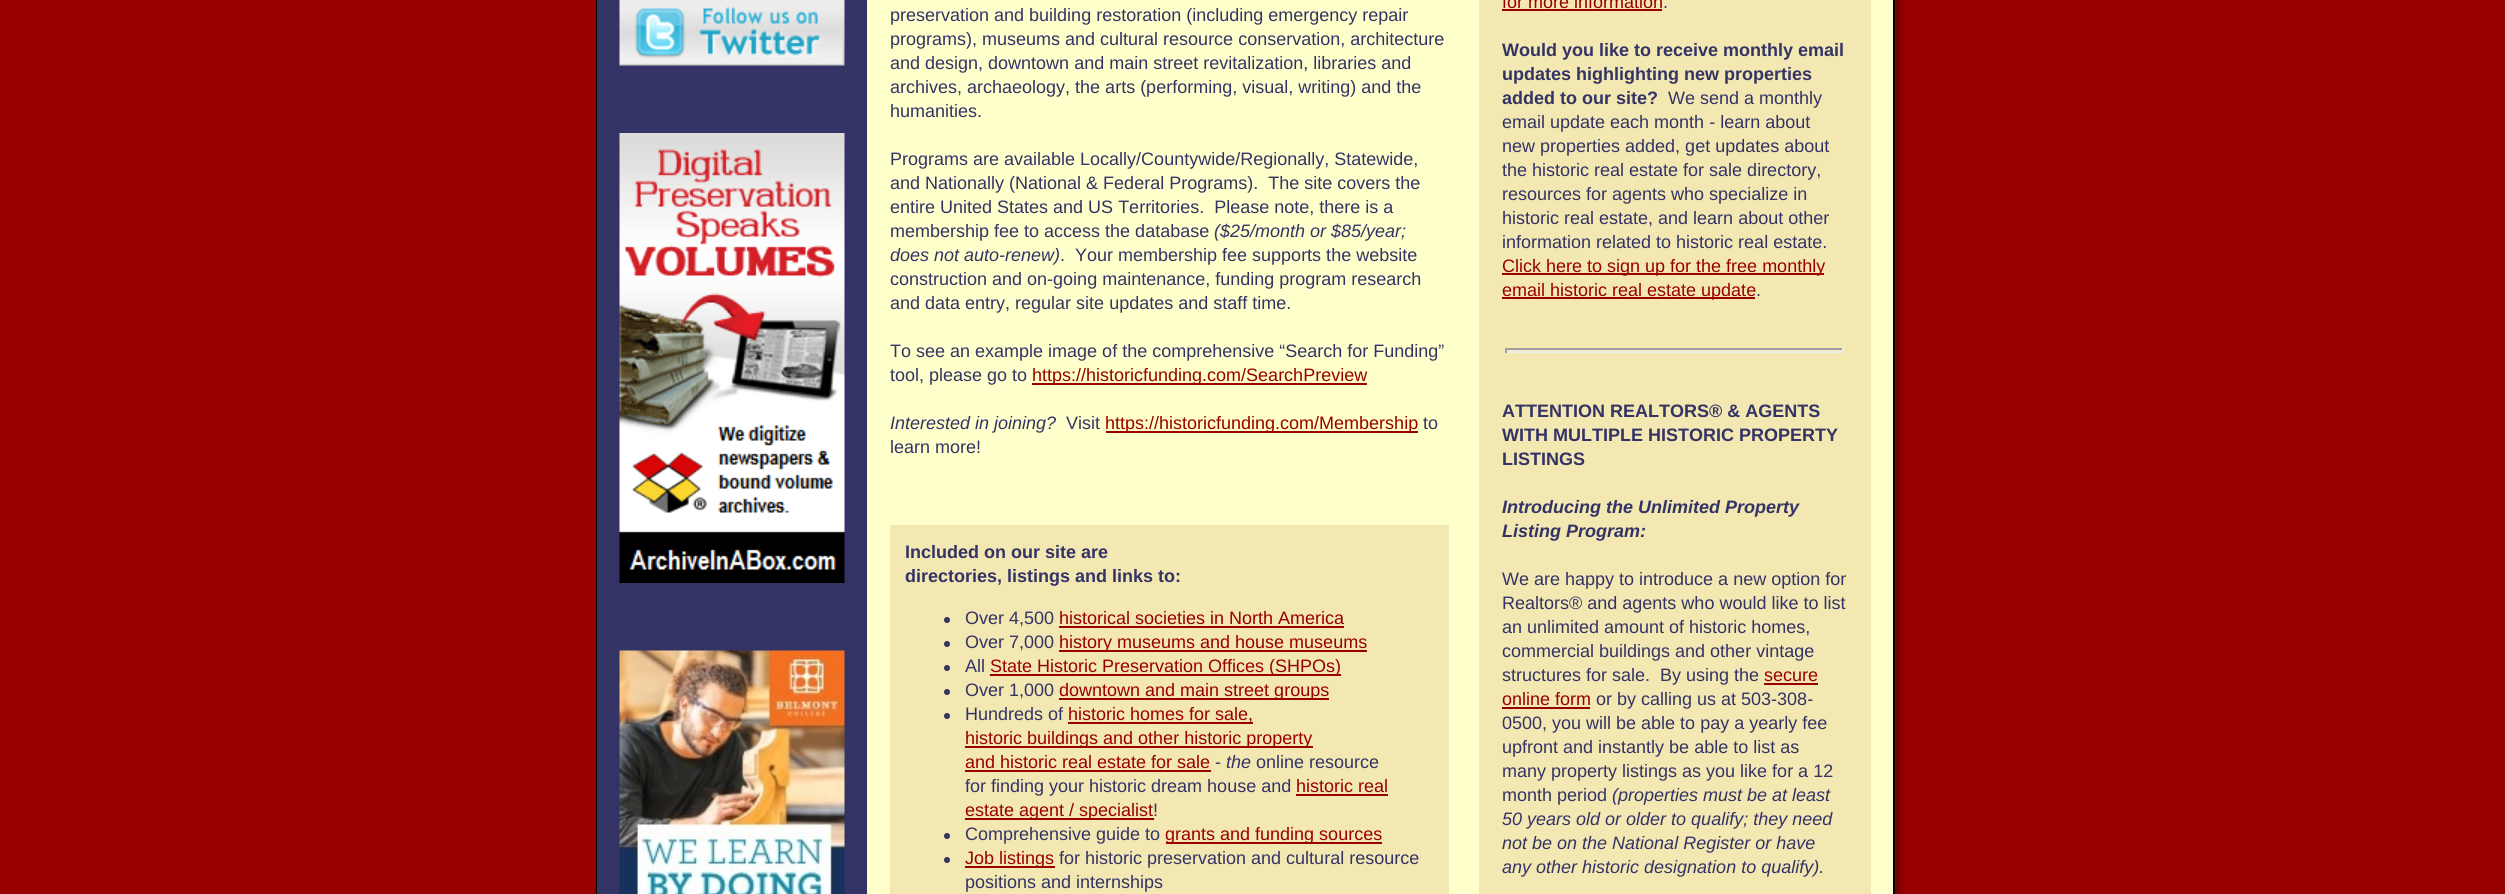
import math
import cairo

surface = cairo.ImageSurface(cairo.FORMAT_RGB24, 2505, 894)
c = cairo.Context(surface)
options = cairo.FontOptions()
options.set_hint_metrics(cairo.HINT_METRICS_OFF)
options.set_hint_style(cairo.HINT_STYLE_NONE)
c.set_font_options(options)
c.set_miter_limit(4)
def C(code):
 c.set_source_rgb(*(v / 255 for v in bytes.fromhex(code[-6:])))
def F(family, size, italic, bold):
 c.select_font_face(family, cairo.FONT_SLANT_ITALIC if italic else cairo.FONT_SLANT_NORMAL, cairo.FONT_WEIGHT_BOLD if bold else cairo.FONT_WEIGHT_NORMAL)
 c.set_font_size(size)
def T(x, y, s):
 c.move_to(x, y)
 c.show_text(s)
def R(x, y, w, h):
 c.rectangle(x, y, w, h)
 c.fill()
def I(path, x, y, w, h):
 c.save()
 c.set_source_surface(cairo.ImageSurface.create_from_png(path), x, y)
 c.rectangle(x, y, w, h)
 c.fill()
 c.restore()
C('990000')
c.paint()
C('000000')
R(596,0,1,894)
R(1893,0,2,894)
C('333366')
R(597,0,270,894)
I('1.png',619,0,226,66)
I('2.png',619,133,226,450)
I('3.png',619,650,226,244)
C('ffffcc')
R(867,0,1026,894)
F('Liberation Sans',18,0,0)
C('333366')
T(890,21,'preservation and building restoration (including emergency repair')
T(890,45,'programs), museums and cultural resource conservation, architecture')
T(890,69,'and design, downtown and main street revitalization, libraries and')
T(890,93,'archives, archaeology, the arts (performing, visual, writing) and the')
T(890,117,'humanities.')
T(890,165,'Programs are available Locally/Countywide/Regionally, Statewide,')
T(890,189,'and Nationally (National & Federal Programs).  The site covers the')
T(890,213,'entire United States and US Territories.  Please note, there is a')
T(890,237,'membership fee to access the database')
F('Liberation Sans',18,1,0)
T(1214,237,'($25/month or $85/year;')
T(890,261,'does not auto-renew)')
F('Liberation Sans',18,0,0)
T(1060,261,'.  Your membership fee supports the website')
T(890,285,'construction and on-going maintenance, funding program research')
T(890,309,'and data entry, regular site updates and staff time.')
T(890,357,'To see an example image of the comprehensive “Search for Funding”')
T(890,381,'tool, please go to')
C('990000')
R(1032,383,335,2)
T(1032,381,'https://historicfunding.com/SearchPreview')
F('Liberation Sans',18,1,0)
C('333366')
T(890,429,'Interested in joining?')
F('Liberation Sans',18,0,0)
T(1066,429,'Visit')
C('990000')
R(1106,431,312,2)
T(1105,429,'https://historicfunding.com/Membership')
C('333366')
T(1423,429,'to')
T(890,453,'learn more!')
C('f3e7b2')
R(890,525,559,369)
F('Liberation Sans',18,0,1)
C('333366')
T(905,558,'Included on our site are')
T(905,582,'directories, listings and links to:')
c.new_path()
c.arc(947,620,3,0,2 * math.pi)
c.fill()
F('Liberation Sans',18,0,0)
T(965,624,'Over 4,500')
C('990000')
T(1059,624,'historical societies in North America')
R(1059,626,285,2)
C('333366')
c.new_path()
c.arc(947,644,3,0,2 * math.pi)
c.fill()
T(965,648,'Over 7,000')
C('990000')
R(1059,650,308,2)
T(1059,648,'history museums and house museums')
C('333366')
c.new_path()
c.arc(947,668,3,0,2 * math.pi)
c.fill()
T(965,672,'All')
C('990000')
R(990,674,351,2)
T(990,672,'State Historic Preservation Offices (SHPOs)')
C('333366')
c.new_path()
c.arc(947,692,3,0,2 * math.pi)
c.fill()
T(965,696,'Over 1,000')
C('990000')
R(1059,698,270,2)
T(1059,696,'downtown and main street groups')
C('333366')
c.new_path()
c.arc(947,716,3,0,2 * math.pi)
c.fill()
T(965,720,'Hundreds of')
C('990000')
R(1068,722,185,2)
T(1068,720,'historic homes for sale,')
R(965,746,348,2)
T(965,744,'historic buildings and other historic property')
T(965,768,'and historic real estate for sale')
R(965,770,246,2)
C('333366')
T(1215,768,'-')
F('Liberation Sans',18,1,0)
T(1226,768,'the')
F('Liberation Sans',18,0,0)
T(1256,768,'online resource')
T(965,792,'for finding your historic dream house and')
C('990000')
T(1296,792,'historic real')
R(1296,794,92,2)
R(965,818,189,2)
T(965,816,'estate agent / specialist')
C('333366')
T(1153,816,'!')
c.new_path()
c.arc(947,836,3,0,2 * math.pi)
c.fill()
T(965,840,'Comprehensive guide to')
C('990000')
R(1166,842,216,2)
T(1165,840,'grants and funding sources')
C('333366')
c.new_path()
c.arc(947,860,3,0,2 * math.pi)
c.fill()
C('990000')
R(965,866,90,2)
T(965,864,'Job listings')
C('333366')
T(1059,864,'for historic preservation and cultural resource')
T(965,888,'positions and internships')
C('f3e7b2')
R(1479,0,392,894)
C('990000')
T(1502,8,'for more information')
R(1502,9,160,2)
C('333366')
T(1663,8,'.')
F('Liberation Sans',18,0,1)
T(1502,56,'Would you like to receive monthly email')
T(1502,80,'updates highlighting new properties')
T(1502,104,'added to our site?')
F('Liberation Sans',18,0,0)
T(1668,104,'We send a monthly')
T(1502,128,'email update each month - learn about')
T(1502,152,'new properties added, get updates about')
T(1502,176,'the historic real estate for sale directory,')
T(1502,200,'resources for agents who specialize in')
T(1502,224,'historic real estate, and learn about other')
T(1502,248,'information related to historic real estate.')
C('990000')
R(1502,273,322,2)
T(1502,272,'Click here to sign up for the free monthly')
R(1502,297,253,2)
T(1502,296,'email historic real estate update')
C('333366')
T(1756,296,'.')
C('9f9f9f')
R(1505,348,339,2)
C('eeeeee')
R(1842,348,2,5)
R(1505,351,339,2)
C('9f9f9f')
R(1505,348,2,5)
F('Liberation Sans',18,0,1)
C('333366')
T(1502,417,'ATTENTION REALTORS® & AGENTS')
T(1502,441,'WITH MULTIPLE HISTORIC PROPERTY')
T(1502,465,'LISTINGS')
F('Liberation Sans',18,1,1)
T(1502,513,'Introducing the Unlimited Property')
T(1502,537,'Listing Program:')
F('Liberation Sans',18,0,0)
T(1502,585,'We are happy to introduce a new option for')
T(1502,609,'Realtors® and agents who would like to list')
T(1502,633,'an unlimited amount of historic homes,')
T(1502,657,'commercial buildings and other vintage')
T(1502,681,'structures for sale.  By using the')
C('990000')
T(1764,681,'secure')
R(1764,683,54,2)
T(1502,705,'online form')
R(1502,707,88,2)
C('333366')
T(1596,705,'or by calling us at 503-308-')
T(1502,729,'0500, you will be able to pay a yearly fee')
T(1502,753,'upfront and instantly be able to list as')
T(1502,777,'many property listings as you like for a 12')
T(1502,801,'month period')
F('Liberation Sans',18,1,0)
T(1612,801,'(properties must be at least')
T(1502,825,'50 years old or older to qualify; they need')
T(1502,849,'not be on the National Register or have')
T(1502,873,'any other historic designation to qualify).')
I('4.png',1895,0,10,894)
surface.write_to_png('o.png')
